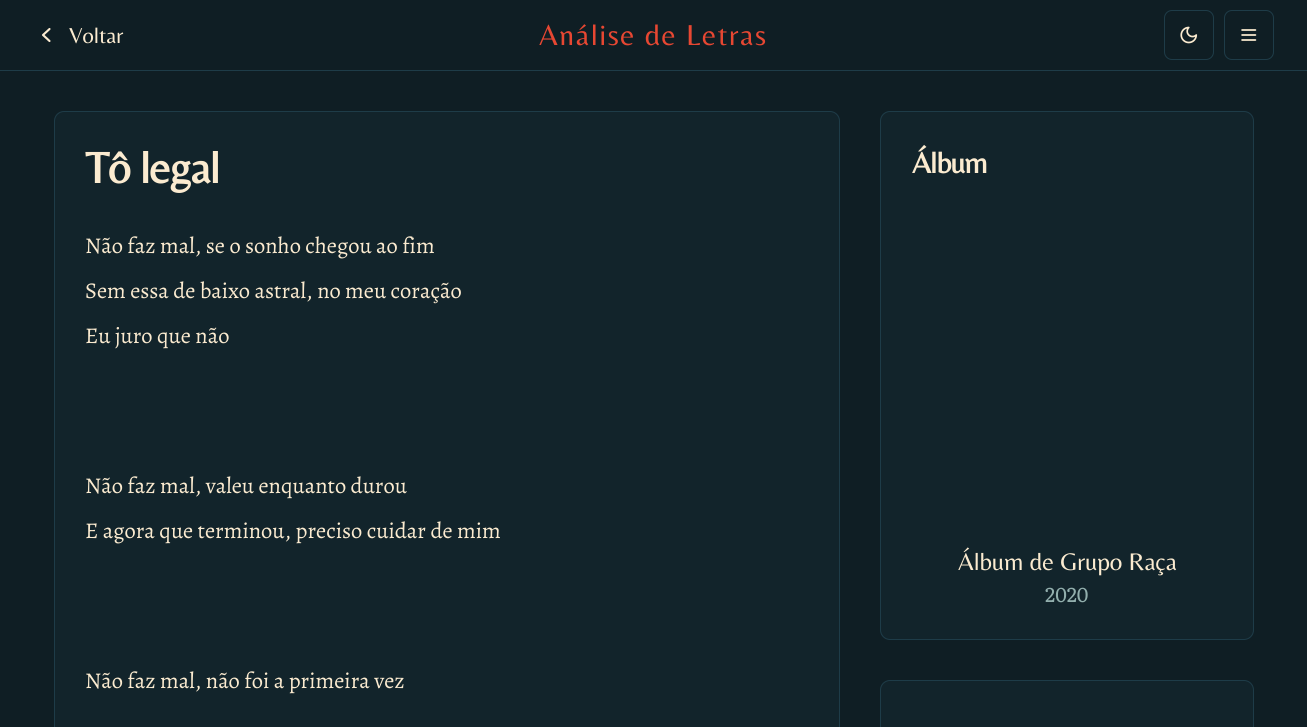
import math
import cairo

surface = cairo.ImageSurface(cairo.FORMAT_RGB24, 1307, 727)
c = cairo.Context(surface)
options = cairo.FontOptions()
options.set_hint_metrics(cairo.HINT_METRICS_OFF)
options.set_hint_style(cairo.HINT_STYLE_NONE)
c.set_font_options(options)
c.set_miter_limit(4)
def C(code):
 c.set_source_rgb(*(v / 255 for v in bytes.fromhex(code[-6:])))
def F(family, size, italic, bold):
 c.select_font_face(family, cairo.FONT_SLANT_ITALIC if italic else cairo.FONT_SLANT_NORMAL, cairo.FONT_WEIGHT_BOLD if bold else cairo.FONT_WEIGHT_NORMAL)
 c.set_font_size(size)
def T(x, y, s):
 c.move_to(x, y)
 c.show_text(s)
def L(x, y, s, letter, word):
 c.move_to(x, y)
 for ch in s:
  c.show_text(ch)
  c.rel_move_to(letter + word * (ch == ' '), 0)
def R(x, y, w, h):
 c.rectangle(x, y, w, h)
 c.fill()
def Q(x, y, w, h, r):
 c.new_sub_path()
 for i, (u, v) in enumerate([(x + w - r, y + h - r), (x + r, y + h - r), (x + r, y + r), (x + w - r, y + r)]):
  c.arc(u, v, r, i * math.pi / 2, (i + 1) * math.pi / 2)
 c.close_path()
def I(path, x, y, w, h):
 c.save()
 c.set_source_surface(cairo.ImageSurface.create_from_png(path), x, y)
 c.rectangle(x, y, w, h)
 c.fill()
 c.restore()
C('0f1e24')
c.paint()
C('1e3c48')
R(0,70,1307,1)
c.new_path()
c.move_to(49.5,41)
c.line_to(43,35)
c.line_to(49.5,29)
C('fbebd0')
c.set_line_width(2.1)
c.set_line_cap(cairo.LINE_CAP_ROUND)
c.set_line_join(cairo.LINE_JOIN_ROUND)
c.stroke()
F('Belleza',22.5,0,0)
T(69,43,'Voltar')
F('Belleza',30,0,0)
C('e74732')
L(539,45,'Análise de Letras',1.5,0)
Q(1164.5,10.5,49,49,7.5)
C('1e3c48')
c.set_line_width(1)
c.set_line_cap(cairo.LINE_CAP_BUTT)
c.set_line_join(cairo.LINE_JOIN_MITER)
c.stroke()
I('1.png',1180,26,18,18)
Q(1224.5,10.5,49,49,7.5)
c.stroke()
I('2.png',1241,29,16,12)
C('12242b')
Q(54.5,111.5,785,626,9.5)
c.fill_preserve()
C('1e3c48')
c.stroke()
F('Belleza',45,0,1)
C('fbebd0')
L(85,183,'Tô legal',-1,0)
F('Alegreya',22.5,0,0)
T(85,253,'Não faz mal, se o sonho chegou ao fim')
T(85,298,'Sem essa de baixo astral, no meu coração')
T(85,343,'Eu juro que não')
T(85,493,'Não faz mal, valeu enquanto durou')
T(85,538,'E agora que terminou, preciso cuidar de mim')
T(85,688,'Não faz mal, não foi a primeira vez')
C('12242b')
Q(880.5,111.5,373,528,9.5)
c.fill_preserve()
C('1e3c48')
c.stroke()
F('Belleza',30,0,1)
C('fbebd0')
L(912,173,'Álbum',-.75,0)
F('Belleza',25,0,0)
T(958,570,'Álbum de Grupo Raça')
F('Literata',20,0,0)
C('92afad')
T(1045,602,'2020')
C('12242b')
Q(880.5,680.5,373,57,9.5)
c.fill_preserve()
C('1e3c48')
c.stroke()
surface.write_to_png('o.png')
